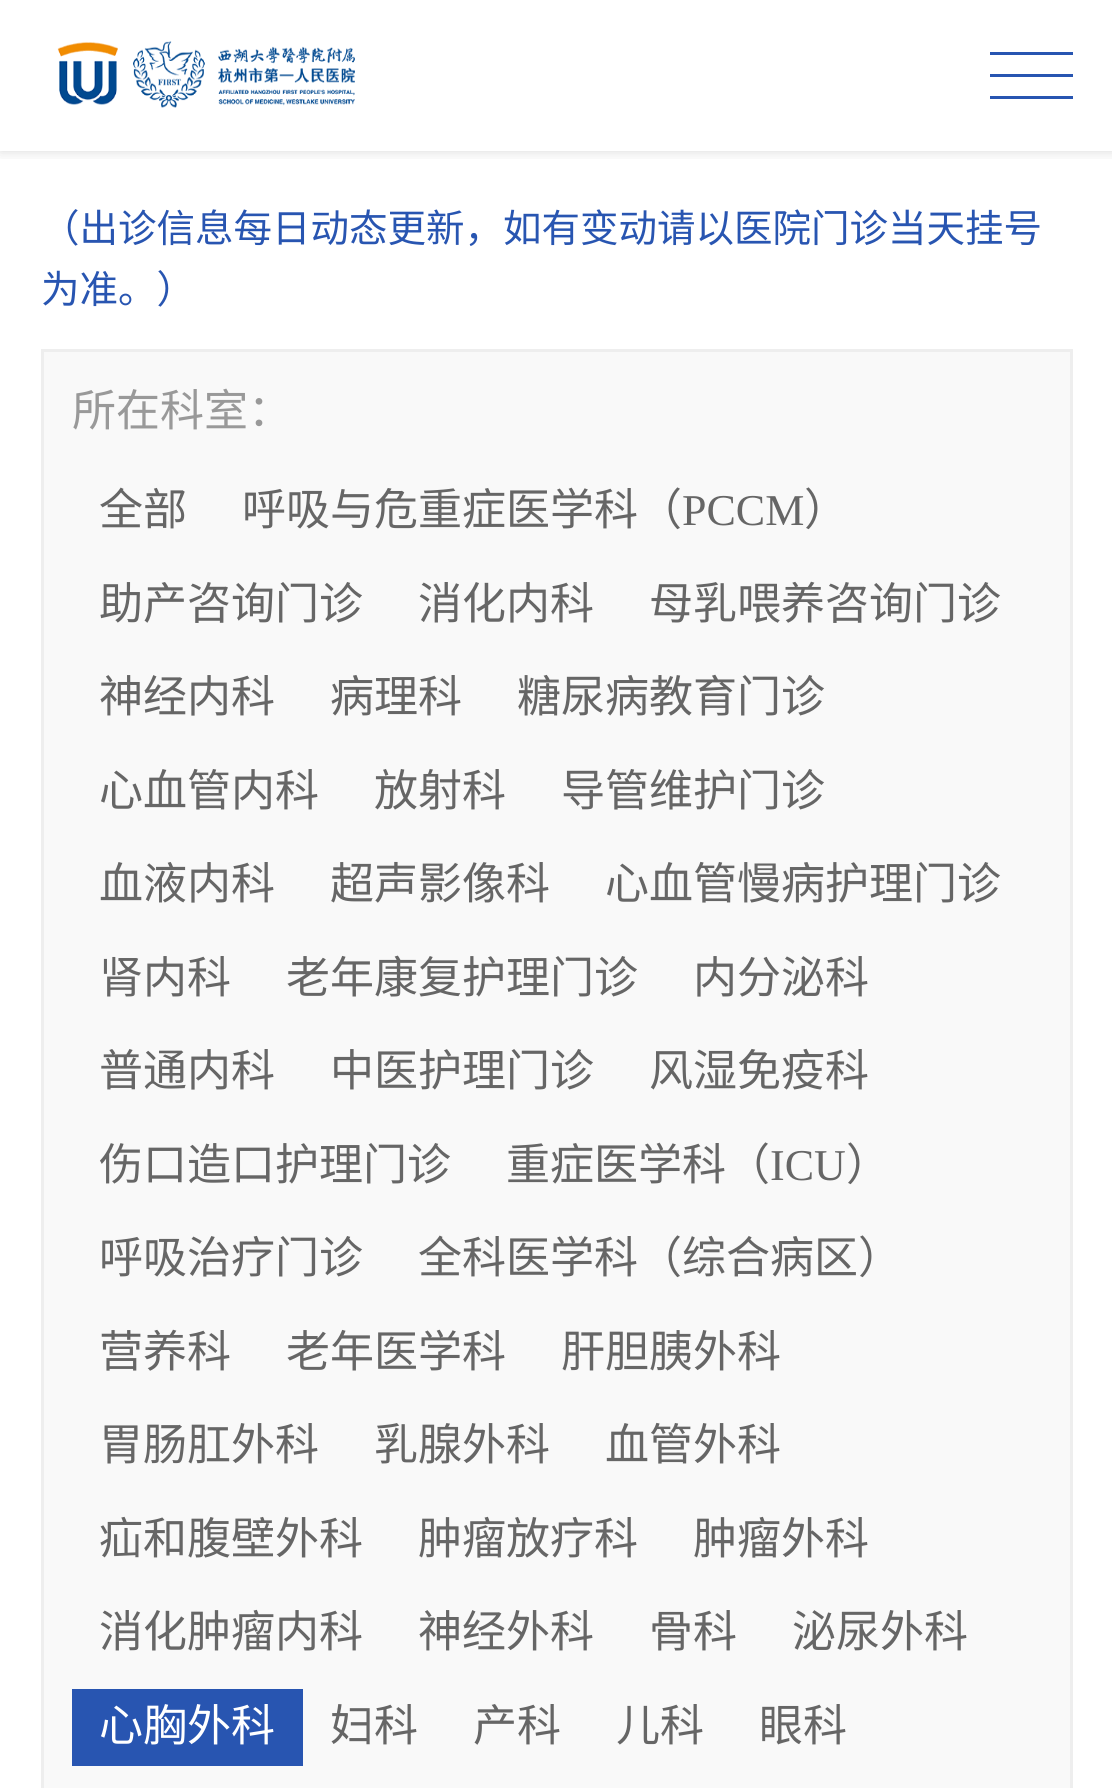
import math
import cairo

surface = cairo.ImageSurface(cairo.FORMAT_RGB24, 1112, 1788)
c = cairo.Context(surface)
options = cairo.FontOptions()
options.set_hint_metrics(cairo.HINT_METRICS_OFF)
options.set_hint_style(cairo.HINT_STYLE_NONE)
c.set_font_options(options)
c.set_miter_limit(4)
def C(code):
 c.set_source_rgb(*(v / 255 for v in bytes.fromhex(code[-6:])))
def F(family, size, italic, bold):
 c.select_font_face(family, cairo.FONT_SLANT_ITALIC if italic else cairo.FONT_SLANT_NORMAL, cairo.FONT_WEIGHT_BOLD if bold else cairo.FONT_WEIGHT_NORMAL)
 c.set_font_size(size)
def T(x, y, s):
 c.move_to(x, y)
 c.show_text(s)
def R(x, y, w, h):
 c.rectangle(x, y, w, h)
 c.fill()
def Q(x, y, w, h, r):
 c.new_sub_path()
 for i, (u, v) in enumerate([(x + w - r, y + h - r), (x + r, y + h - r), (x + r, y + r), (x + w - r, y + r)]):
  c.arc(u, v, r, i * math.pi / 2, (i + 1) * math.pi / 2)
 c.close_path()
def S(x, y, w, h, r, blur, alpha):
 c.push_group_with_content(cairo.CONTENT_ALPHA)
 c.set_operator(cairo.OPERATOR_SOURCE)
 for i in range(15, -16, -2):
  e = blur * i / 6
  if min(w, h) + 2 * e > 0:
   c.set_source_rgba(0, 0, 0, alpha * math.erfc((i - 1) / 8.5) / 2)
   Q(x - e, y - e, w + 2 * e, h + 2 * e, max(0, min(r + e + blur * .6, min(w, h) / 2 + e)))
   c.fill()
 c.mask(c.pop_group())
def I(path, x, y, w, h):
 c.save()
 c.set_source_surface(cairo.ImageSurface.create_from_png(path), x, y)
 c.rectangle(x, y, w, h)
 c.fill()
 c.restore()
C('ffffff')
c.paint()
c.save()
c.rectangle(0,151,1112,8)
c.clip()
C('000000')
S(0,0,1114,151,0,7,.15)
c.restore()
I('1.png',57,41,298,67)
C('2855b1')
R(990,74,83,3)
R(990,52,83,3)
R(990,96,83,3)
F('Noto Sans CJK SC',38.5,0,0)
T(41,242,'（出诊信息每日动态更新，如有变动请以医院门诊当天挂号')
T(41,303,'为准。）')
C('f9f9f9')
c.rectangle(42.5,350.5,1029,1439)
c.fill_preserve()
C('eeeeee')
c.set_line_width(3)
c.stroke()
F('Noto Sans CJK SC',44,0,0)
C('999999')
T(72,426,'所在科室：')
C('666666')
T(99,525,'全部')
T(242,525,'呼吸与危重症医学科（')
F('Liberation Serif',44,0,0)
T(682,525,'PCCM')
F('Noto Sans CJK SC',44,0,0)
T(804,525,'）')
T(99,619,'助产咨询门诊')
T(418,619,'消化内科')
T(649,619,'母乳喂养咨询门诊')
T(99,712,'神经内科')
T(330,712,'病理科')
T(517,712,'糖尿病教育门诊')
T(99,806,'心血管内科')
T(374,806,'放射科')
T(561,806,'导管维护门诊')
T(99,899,'血液内科')
T(330,899,'超声影像科')
T(605,899,'心血管慢病护理门诊')
T(99,993,'肾内科')
T(286,993,'老年康复护理门诊')
T(693,993,'内分泌科')
T(99,1086,'普通内科')
T(330,1086,'中医护理门诊')
T(649,1086,'风湿免疫科')
T(99,1180,'伤口造口护理门诊')
T(506,1180,'重症医学科（')
F('Liberation Serif',44,0,0)
T(770,1180,'ICU')
F('Noto Sans CJK SC',44,0,0)
T(846,1180,'）')
T(99,1273,'呼吸治疗门诊')
T(418,1273,'全科医学科（综合病区）')
T(99,1367,'营养科')
T(286,1367,'老年医学科')
T(561,1367,'肝胆胰外科')
T(99,1460,'胃肠肛外科')
T(374,1460,'乳腺外科')
T(605,1460,'血管外科')
T(99,1554,'疝和腹壁外科')
T(418,1554,'肿瘤放疗科')
T(693,1554,'肿瘤外科')
T(99,1647,'消化肿瘤内科')
T(418,1647,'神经外科')
T(649,1647,'骨科')
T(792,1647,'泌尿外科')
C('2855b1')
R(72,1689,231,77)
C('ffffff')
T(99,1741,'心胸外科')
C('666666')
T(330,1741,'妇科')
T(473,1741,'产科')
T(616,1741,'儿科')
T(759,1741,'眼科')
surface.write_to_png('o.png')
